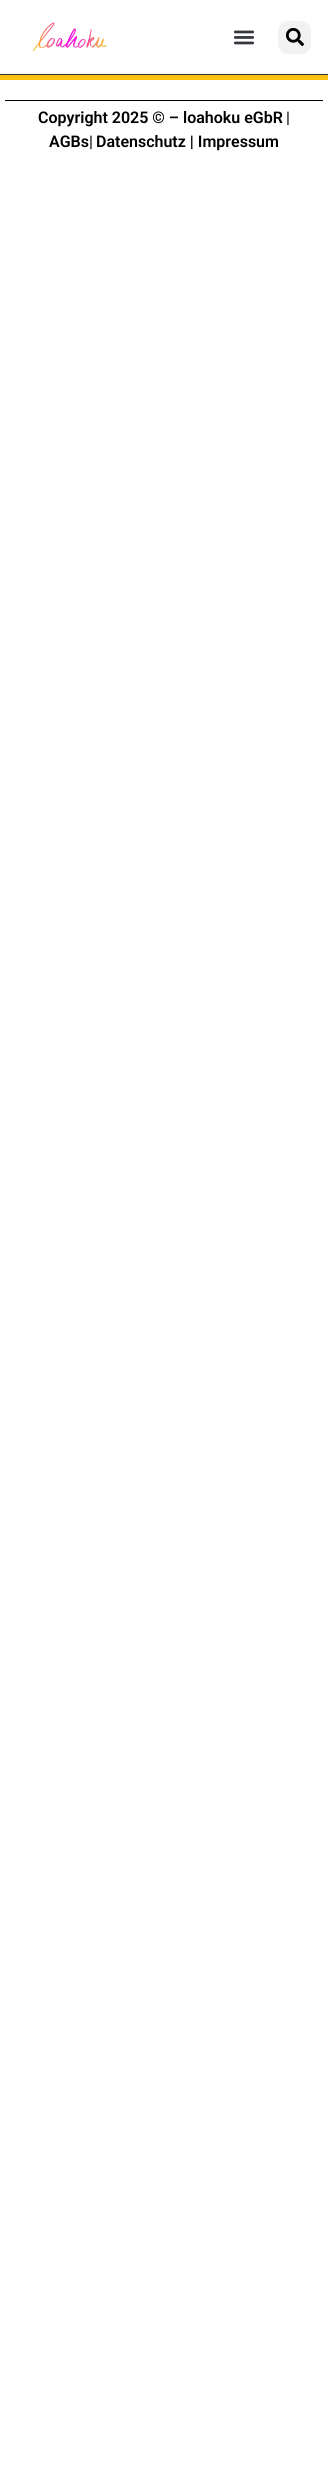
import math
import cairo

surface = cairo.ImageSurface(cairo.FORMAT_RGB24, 328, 2485)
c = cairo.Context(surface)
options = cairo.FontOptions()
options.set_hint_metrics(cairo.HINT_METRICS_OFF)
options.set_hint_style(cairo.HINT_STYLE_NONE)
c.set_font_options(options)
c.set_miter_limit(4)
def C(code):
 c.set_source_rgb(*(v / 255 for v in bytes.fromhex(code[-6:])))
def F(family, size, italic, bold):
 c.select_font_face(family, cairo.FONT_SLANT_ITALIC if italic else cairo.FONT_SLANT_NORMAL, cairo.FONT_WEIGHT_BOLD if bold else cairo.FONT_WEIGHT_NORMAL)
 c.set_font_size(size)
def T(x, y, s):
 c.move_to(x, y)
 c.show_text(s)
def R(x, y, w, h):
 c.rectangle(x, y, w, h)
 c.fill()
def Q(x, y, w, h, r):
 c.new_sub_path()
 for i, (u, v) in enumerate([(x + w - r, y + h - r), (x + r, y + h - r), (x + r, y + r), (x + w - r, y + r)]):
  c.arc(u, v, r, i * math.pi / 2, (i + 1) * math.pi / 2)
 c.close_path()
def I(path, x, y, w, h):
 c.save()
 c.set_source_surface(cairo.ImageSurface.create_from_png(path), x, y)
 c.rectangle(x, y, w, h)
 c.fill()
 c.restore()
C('ffffff')
c.paint()
C('333333')
R(0,74,328,1)
I('1.png',32,22,75,30)
I('2.png',233,30,22,15)
C('f2f2f2')
Q(278,21,33,33,10)
c.fill()
I('3.png',286,28,18,18)
C('ffc212')
R(0,75,328,5)
C('000000')
R(5,100,318,1)
F('Roboto SemiBold',16,0,0)
T(38,123,'Copyright 2025 © – loahoku eGbR')
F('Roboto',16,0,0)
T(286,123,'|')
F('Roboto SemiBold',16,0,0)
T(49,147,'AGBs')
F('Roboto',16,0,0)
T(89,147,'|')
F('Roboto SemiBold',16,0,0)
T(96,147,'Datenschutz | Impressum')
surface.write_to_png('o.png')
